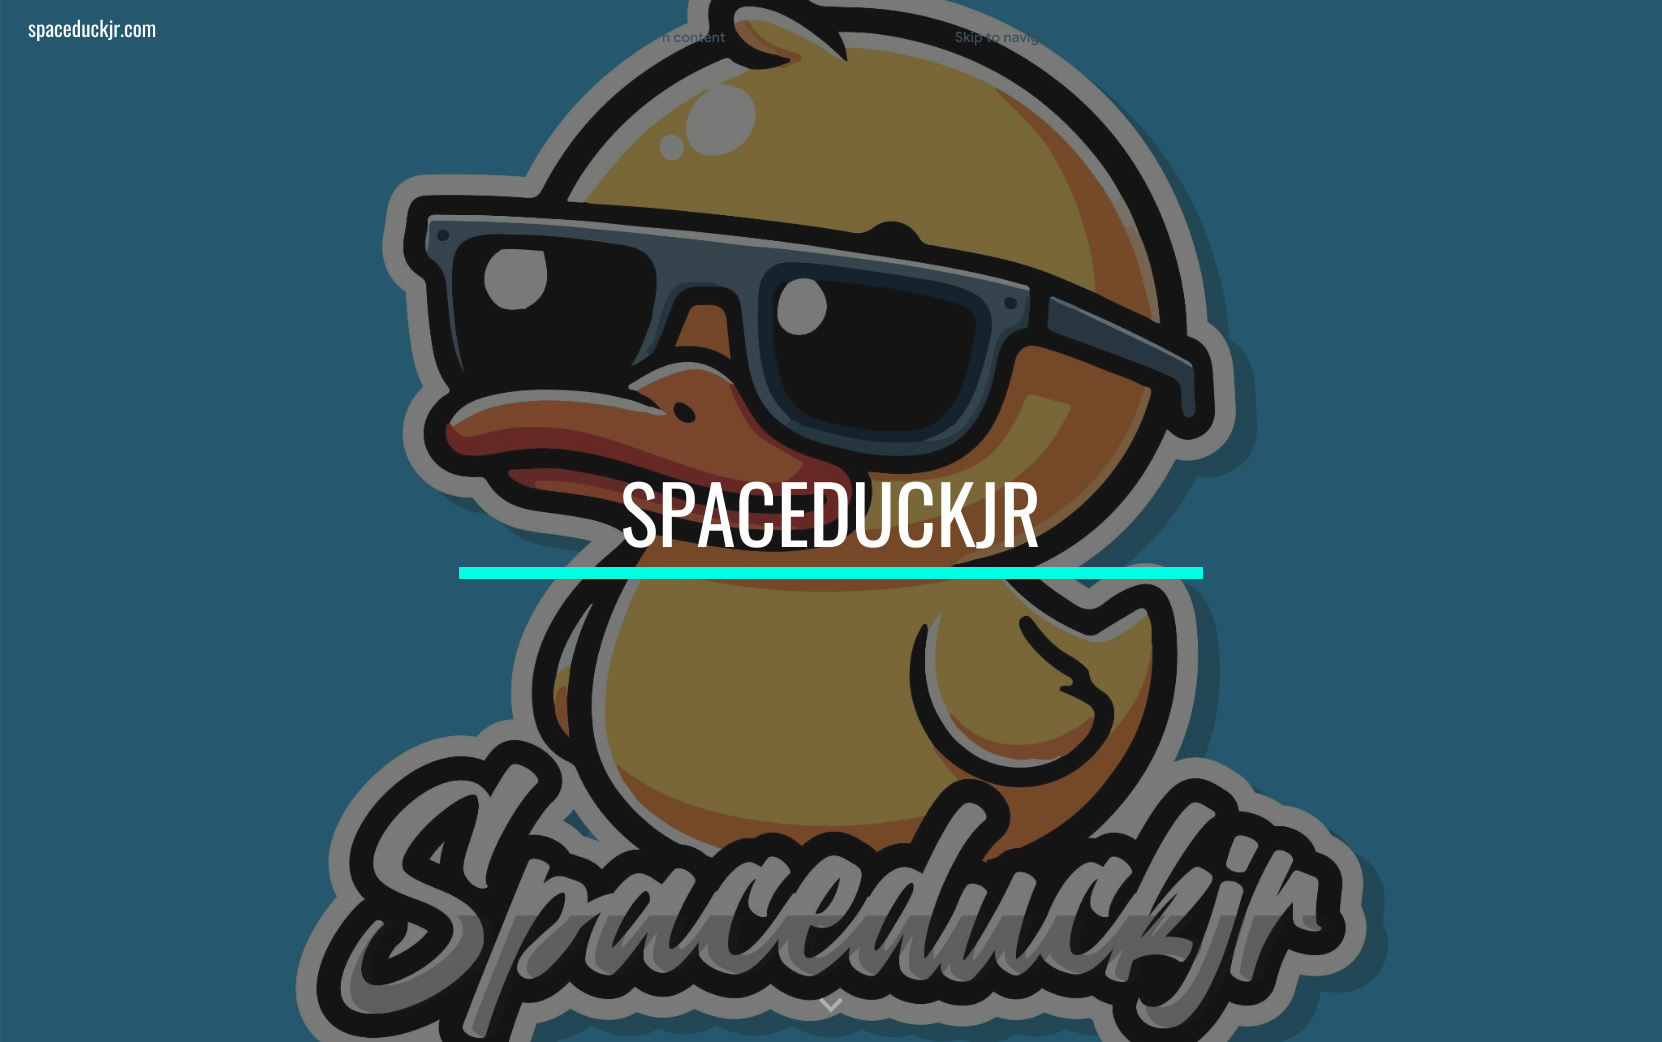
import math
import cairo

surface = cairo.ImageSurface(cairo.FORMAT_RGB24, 1662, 1042)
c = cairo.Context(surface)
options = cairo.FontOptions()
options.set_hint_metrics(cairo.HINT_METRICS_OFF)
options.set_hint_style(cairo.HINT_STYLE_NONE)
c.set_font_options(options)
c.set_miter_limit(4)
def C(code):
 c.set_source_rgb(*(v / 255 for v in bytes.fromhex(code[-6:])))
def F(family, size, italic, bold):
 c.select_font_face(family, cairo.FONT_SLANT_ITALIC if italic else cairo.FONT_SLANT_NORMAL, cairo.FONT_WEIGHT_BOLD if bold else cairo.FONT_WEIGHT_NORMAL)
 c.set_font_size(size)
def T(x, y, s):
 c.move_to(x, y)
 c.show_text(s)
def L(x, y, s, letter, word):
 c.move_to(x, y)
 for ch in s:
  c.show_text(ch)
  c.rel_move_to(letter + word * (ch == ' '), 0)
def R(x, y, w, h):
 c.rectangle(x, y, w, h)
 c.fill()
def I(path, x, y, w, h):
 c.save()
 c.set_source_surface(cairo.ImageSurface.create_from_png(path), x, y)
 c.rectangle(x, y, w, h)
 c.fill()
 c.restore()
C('ffffff')
c.paint()
I('1.png',0,0,1662,1042)
F('Oswald',21.25,0,0)
C('ffffff')
T(28,37,'spaceduckjr.com')
F('Oswald',80,0,0)
T(620,547,'SPACEDUCKJR')
C('00ffe3')
R(459,567,744,12)
c.set_source_rgba(1,1,1,0.4)
c.new_path()
c.move_to(822,997.5)
c.line_to(831,1007)
c.line_to(840,997.5)
c.line_to(843,1000.5)
c.line_to(831,1012.5)
c.line_to(819,1000.5)
c.close_path()
c.fill()
F('Google Sans Medium',14,0,0)
C('3b5662')
L(662,42,'n content',.1,0)
C('3c4f57')
L(955,42,'Skip to navig',.1,0)
surface.write_to_png('o.png')
